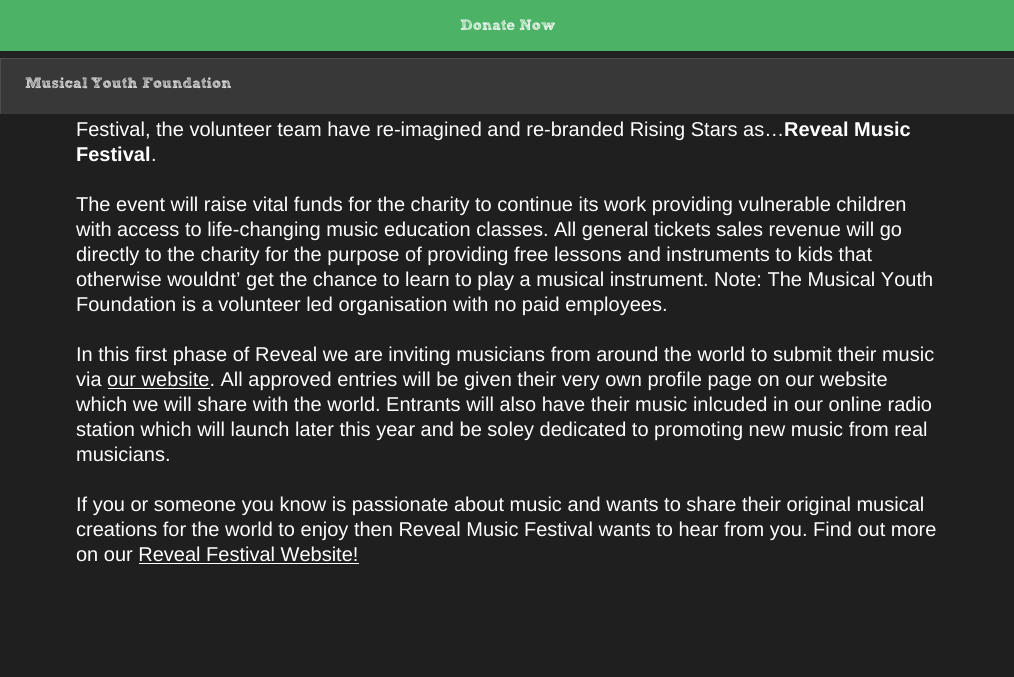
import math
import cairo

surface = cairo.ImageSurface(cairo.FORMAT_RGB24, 1014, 677)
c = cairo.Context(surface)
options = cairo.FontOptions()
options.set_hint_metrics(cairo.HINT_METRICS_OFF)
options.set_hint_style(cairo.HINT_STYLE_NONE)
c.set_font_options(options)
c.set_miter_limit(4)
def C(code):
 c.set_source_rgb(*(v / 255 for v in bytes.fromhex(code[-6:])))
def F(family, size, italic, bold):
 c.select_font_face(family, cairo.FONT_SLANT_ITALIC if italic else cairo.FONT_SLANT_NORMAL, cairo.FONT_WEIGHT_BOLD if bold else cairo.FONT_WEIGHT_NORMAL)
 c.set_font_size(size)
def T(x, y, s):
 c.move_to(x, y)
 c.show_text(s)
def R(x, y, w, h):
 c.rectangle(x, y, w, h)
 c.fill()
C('1f1f1f')
c.paint()
C('4bb266')
R(0,0,1014,51)
F('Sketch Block',15,0,1)
C('ffffff')
T(460,30,'Donate')
T(519,30,'Now')
C('222222')
R(0,51,1014,7)
C('383838')
R(1,59,1013,55)
c.save()
c.rectangle(0,58,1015,56)
c.clip()
C('4c4c4c')
c.set_fill_rule(cairo.FILL_RULE_EVEN_ODD)
c.new_path()
c.move_to(-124,-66)
c.line_to(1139,-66)
c.line_to(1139,238)
c.line_to(-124,238)
c.close_path()
c.move_to(1,59)
c.line_to(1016,59)
c.line_to(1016,115)
c.line_to(1,115)
c.close_path()
c.fill()
c.restore()
C('eeeeee')
T(25,88,'Musical')
T(91,88,'Youth')
T(142,88,'Foundation')
F('Liberation Sans',20,0,0)
C('ffffff')
T(76,136,'Festival, the volunteer team have re-imagined and re-branded Rising Stars as…')
F('Liberation Sans',20,0,1)
T(784,136,'Reveal Music')
T(76,161,'Festival')
F('Liberation Sans',20,0,0)
T(151,161,'.')
T(76,211,'The event will raise vital funds for the charity to continue its work providing vulnerable children')
T(76,236,'with access to life-changing music education classes. All general tickets sales revenue will go')
T(76,261,'directly to the charity for the purpose of providing free lessons and instruments to kids that')
T(76,286,'otherwise wouldnt’ get the chance to learn to play a musical instrument. Note: The Musical Youth')
T(76,311,'Foundation is a volunteer led organisation with no paid employees.')
T(76,361,'In this first phase of Reveal we are inviting musicians from around the world to submit their music')
T(76,386,'via our website. All approved entries will be given their very own profile page on our website')
R(108,388,102,1)
T(76,411,'which we will share with the world. Entrants will also have their music inlcuded in our online radio')
T(76,436,'station which will launch later this year and be soley dedicated to promoting new music from real')
T(76,461,'musicians.')
T(76,511,'If you or someone you know is passionate about music and wants to share their original musical')
T(76,536,'creations for the world to enjoy then Reveal Music Festival wants to hear from you. Find out more')
T(76,561,'on our Reveal Festival Website!')
R(139,563,220,1)
surface.write_to_png('o.png')
